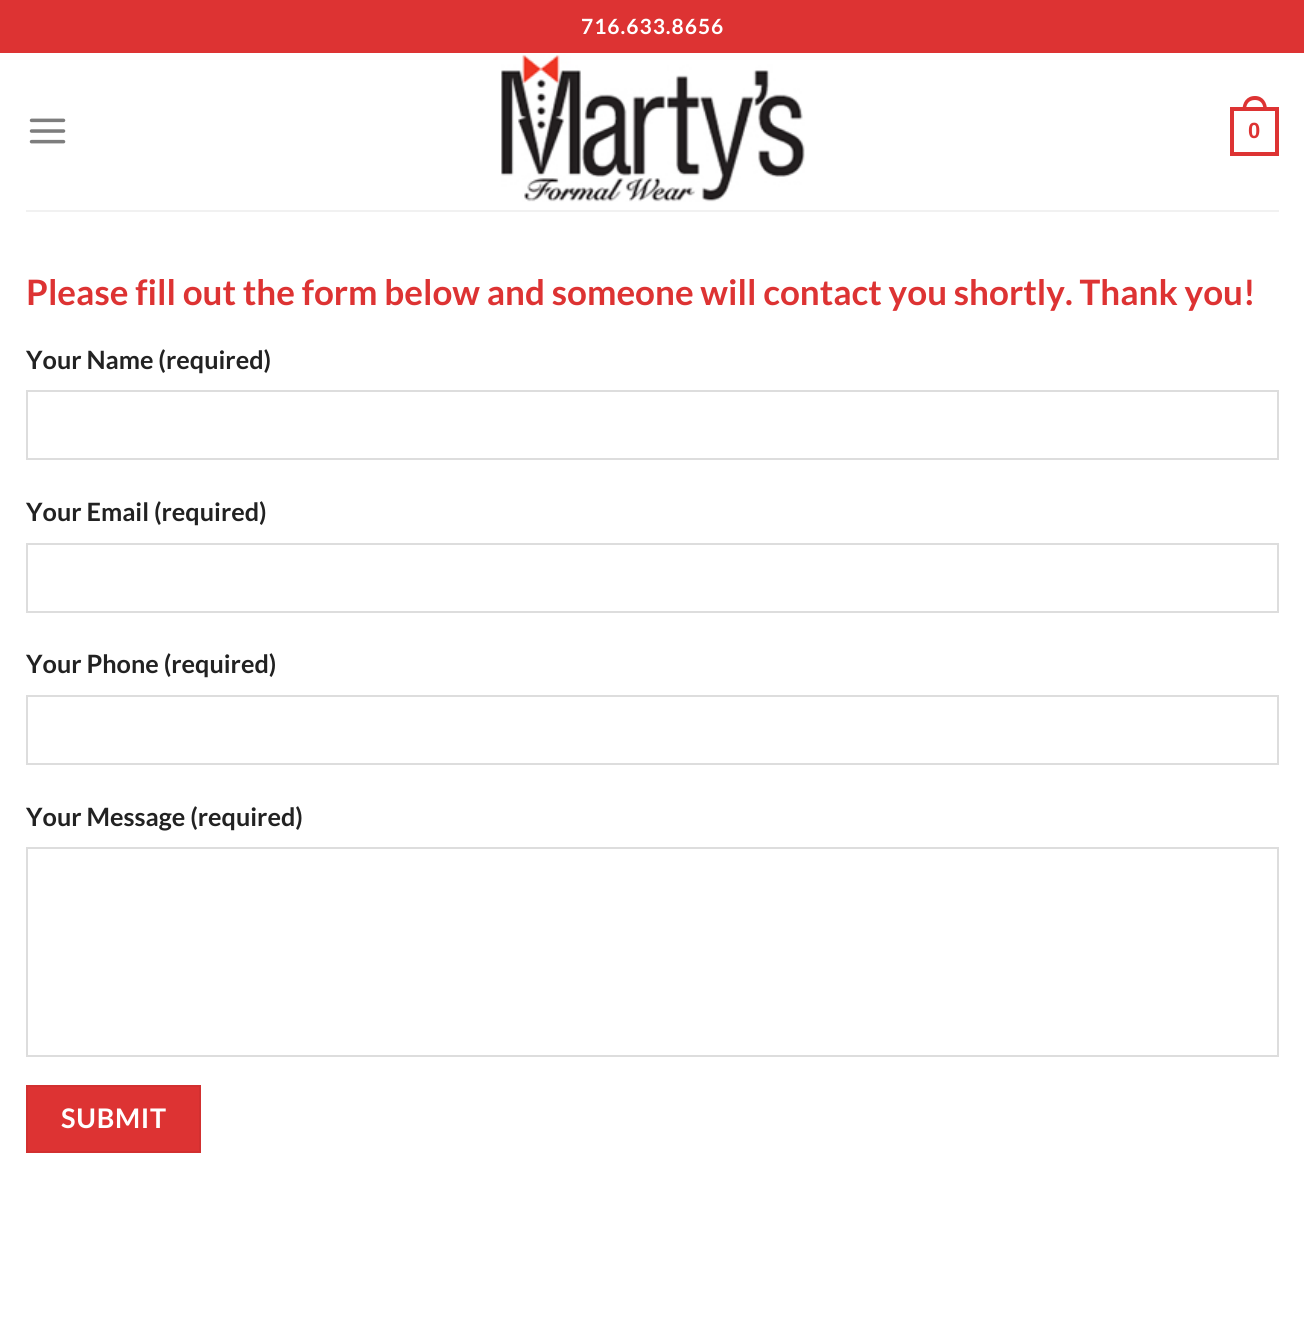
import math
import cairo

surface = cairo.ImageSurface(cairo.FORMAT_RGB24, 1304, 1319)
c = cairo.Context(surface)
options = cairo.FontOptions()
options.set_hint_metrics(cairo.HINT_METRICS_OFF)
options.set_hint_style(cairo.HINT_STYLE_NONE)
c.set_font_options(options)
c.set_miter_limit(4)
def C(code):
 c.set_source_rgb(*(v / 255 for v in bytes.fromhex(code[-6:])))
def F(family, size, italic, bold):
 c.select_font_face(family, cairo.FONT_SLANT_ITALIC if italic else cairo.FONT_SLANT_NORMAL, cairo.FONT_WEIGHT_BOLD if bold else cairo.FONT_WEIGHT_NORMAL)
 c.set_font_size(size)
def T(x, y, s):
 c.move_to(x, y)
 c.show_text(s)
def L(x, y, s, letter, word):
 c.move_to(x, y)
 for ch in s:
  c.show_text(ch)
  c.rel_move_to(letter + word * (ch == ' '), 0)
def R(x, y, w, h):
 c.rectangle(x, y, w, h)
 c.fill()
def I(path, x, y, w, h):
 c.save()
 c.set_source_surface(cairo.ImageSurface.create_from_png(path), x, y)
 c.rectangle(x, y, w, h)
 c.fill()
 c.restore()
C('ffffff')
c.paint()
C('dd3333')
R(0,0,1304,53)
F('Lato',21,0,1)
C('ffffff')
L(581,34,'716.633.8656',1,0)
I('1.png',29,118,37,26)
I('2.png',501,54,304,148)
c.rectangle(1232,109,45,45)
C('dd3333')
c.set_line_width(4)
c.stroke()
c.set_fill_rule(cairo.FILL_RULE_EVEN_ODD)
c.new_path()
c.move_to(1255,96)
c.curve_to(1263,96,1267,102.5,1267,110)
c.line_to(1242.5,110)
c.curve_to(1242.5,102.5,1246.5,96,1255,96)
c.close_path()
c.move_to(1255,100)
c.curve_to(1261,100,1263.5,104.5,1263.5,110)
c.line_to(1246,110)
c.curve_to(1246,104.5,1248.5,100,1255,100)
c.close_path()
c.fill()
F('Liberation Sans',22,0,1)
T(1248,138,'0')
C('f1f1f1')
R(26,210,1253,2)
F('Lato',35,0,1)
C('dd3333')
T(26,305,'Please fill out the form below and someone will contact you shortly. Thank you!')
F('Lato',25.25,0,1)
C('222222')
T(26,369,'Your Name (required)')
c.rectangle(27,391,1251,68)
C('dddddd')
c.set_line_width(2)
c.stroke()
C('222222')
T(26,521,'Your Email (required)')
c.rectangle(27,544,1251,68)
C('dddddd')
c.stroke()
C('222222')
T(26,673,'Your Phone (required)')
c.rectangle(27,696,1251,68)
C('dddddd')
c.stroke()
C('222222')
T(26,826,'Your Message (required)')
c.rectangle(27,848,1251,208)
C('dddddd')
c.stroke()
C('dd3333')
c.rectangle(27,1086,173,66)
c.fill_preserve()
C('d23030')
c.stroke()
F('Lato',27,0,1)
C('ffffff')
L(61,1128,'SUBMIT',.75,0)
surface.write_to_png('o.png')
